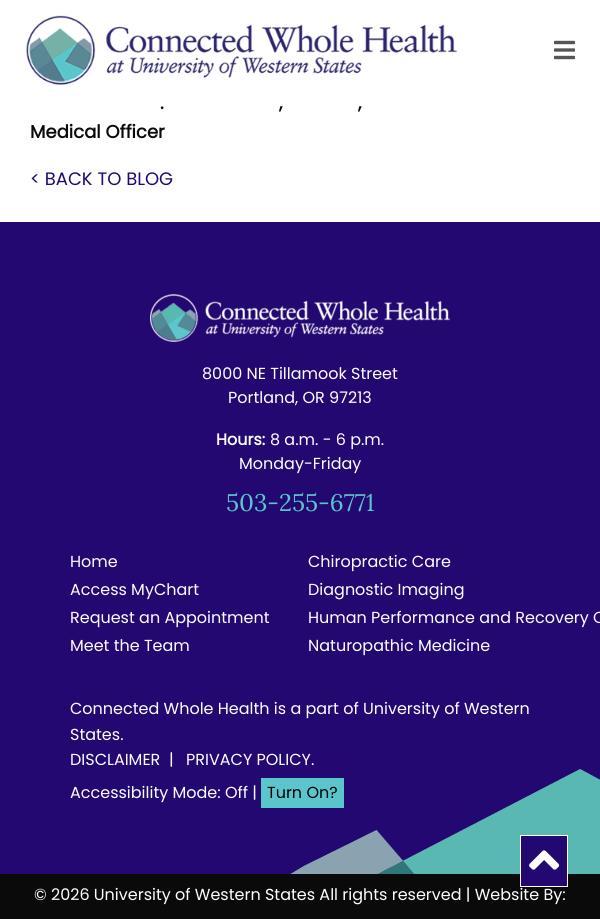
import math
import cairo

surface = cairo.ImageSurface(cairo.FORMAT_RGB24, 600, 919)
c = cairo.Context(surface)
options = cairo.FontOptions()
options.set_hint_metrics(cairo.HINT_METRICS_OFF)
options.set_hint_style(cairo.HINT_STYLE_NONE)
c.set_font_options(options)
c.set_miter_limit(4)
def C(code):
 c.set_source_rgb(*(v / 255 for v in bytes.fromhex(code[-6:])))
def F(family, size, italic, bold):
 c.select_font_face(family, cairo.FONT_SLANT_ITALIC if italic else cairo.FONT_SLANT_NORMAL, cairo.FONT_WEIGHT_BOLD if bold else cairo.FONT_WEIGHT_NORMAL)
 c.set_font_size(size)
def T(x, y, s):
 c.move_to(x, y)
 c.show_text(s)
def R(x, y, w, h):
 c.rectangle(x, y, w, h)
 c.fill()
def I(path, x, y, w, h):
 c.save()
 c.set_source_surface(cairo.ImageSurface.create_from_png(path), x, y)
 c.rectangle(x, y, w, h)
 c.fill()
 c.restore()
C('ffffff')
c.paint()
I('1.png',26,15,431,70)
I('2.png',554,40,21,20)
F('Poppins',18,0,1)
C('0a0a0a')
T(160,109,'.')
T(279,109,',')
T(358,109,',')
T(30,138,'Medical Officer')
F('Poppins',18,0,0)
C('230871')
T(30,185,'< BACK TO BLOG')
R(0,222,600,652)
I('3.png',290,769,310,105)
I('4.png',150,294,300,48)
F('Poppins',16,0,0)
C('fefefe')
T(202,379,'8000 NE Tillamook Street')
T(228,403,'Portland, OR 97213')
F('Poppins',16,0,1)
T(216,445,'Hours:')
F('Poppins',16,0,0)
T(270,445,'8 a.m. - 6 p.m.')
T(239,469,'Monday-Friday')
F('Lora',24,0,0)
C('5ac6cc')
T(226,511,'503-255-6771')
F('Poppins',16,0,0)
C('fefefe')
T(70,567,'Home')
T(308,567,'Chiropractic Care')
T(70,595,'Access MyChart')
T(308,595,'Diagnostic Imaging')
T(70,623,'Request an Appointment')
T(308,623,'Human Performance and Recovery C')
T(70,651,'Meet the Team')
T(308,651,'Naturopathic Medicine')
T(70,714,'Connected Whole Health is a part of University of Western')
T(70,740,'States.')
T(70,765,'DISCLAIMER')
T(169,765,'|')
T(186,765,'PRIVACY POLICY.')
T(70,798,'Accessibility Mode: Off |')
C('5ac6cc')
R(261,778,83,30)
C('000000')
T(267,798,'Turn On?')
C('0a0a0a')
R(0,874,600,45)
C('fefefe')
T(34,900,'© 2026 University of Western States All rights reserved | Website By:')
C('230871')
c.rectangle(520.5,835.5,47,51)
c.fill_preserve()
C('ffffff')
c.set_line_width(1)
c.stroke()
I('5.png',529,850,31,20)
surface.write_to_png('o.png')
